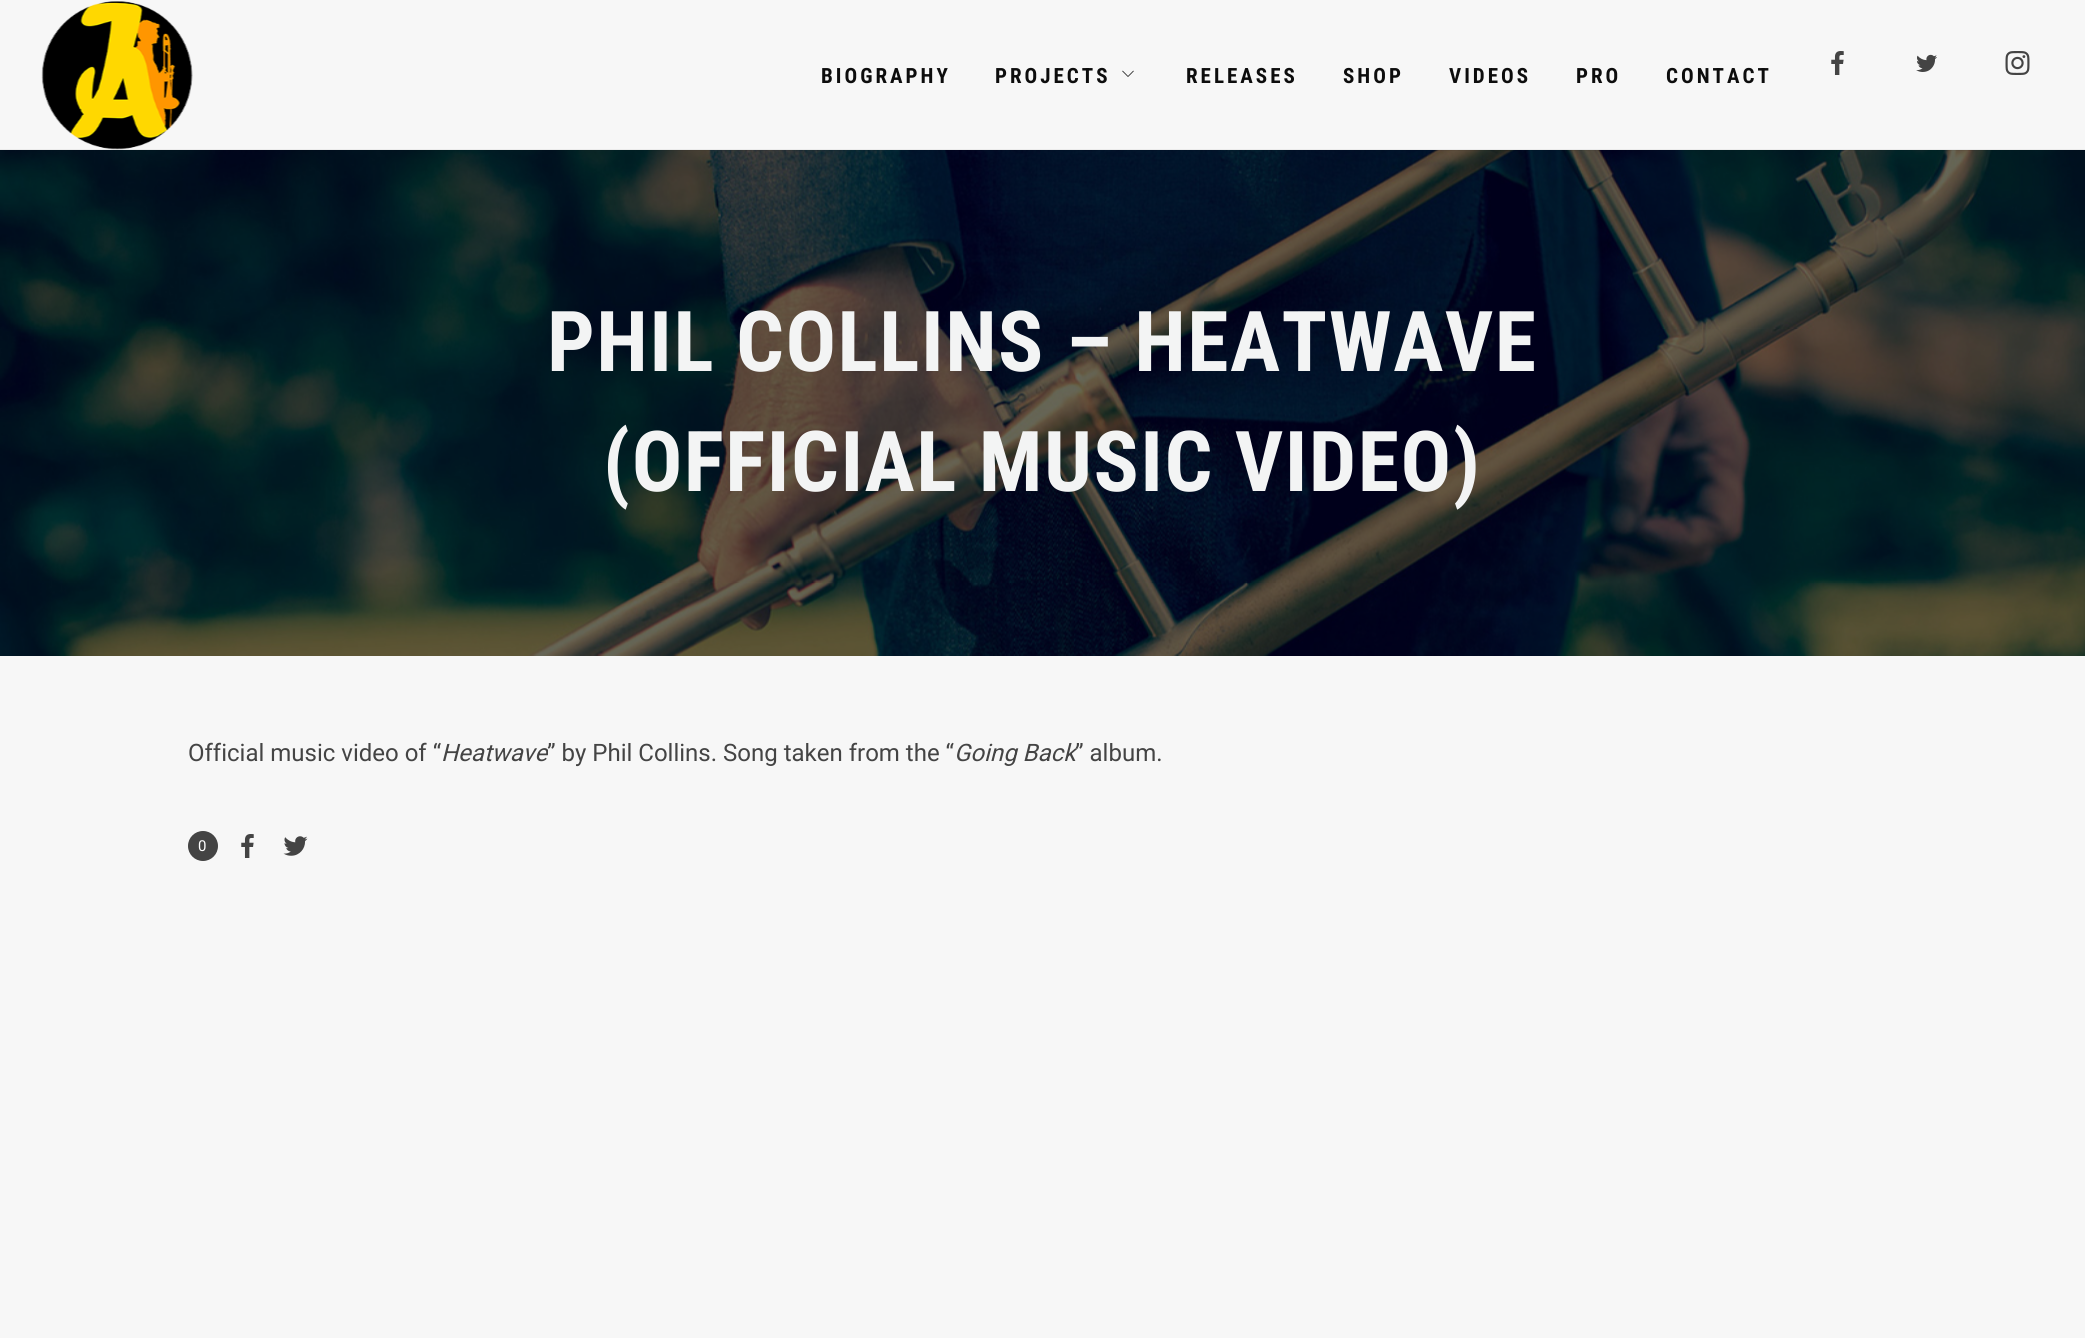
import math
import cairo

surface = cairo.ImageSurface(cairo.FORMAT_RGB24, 2085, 1338)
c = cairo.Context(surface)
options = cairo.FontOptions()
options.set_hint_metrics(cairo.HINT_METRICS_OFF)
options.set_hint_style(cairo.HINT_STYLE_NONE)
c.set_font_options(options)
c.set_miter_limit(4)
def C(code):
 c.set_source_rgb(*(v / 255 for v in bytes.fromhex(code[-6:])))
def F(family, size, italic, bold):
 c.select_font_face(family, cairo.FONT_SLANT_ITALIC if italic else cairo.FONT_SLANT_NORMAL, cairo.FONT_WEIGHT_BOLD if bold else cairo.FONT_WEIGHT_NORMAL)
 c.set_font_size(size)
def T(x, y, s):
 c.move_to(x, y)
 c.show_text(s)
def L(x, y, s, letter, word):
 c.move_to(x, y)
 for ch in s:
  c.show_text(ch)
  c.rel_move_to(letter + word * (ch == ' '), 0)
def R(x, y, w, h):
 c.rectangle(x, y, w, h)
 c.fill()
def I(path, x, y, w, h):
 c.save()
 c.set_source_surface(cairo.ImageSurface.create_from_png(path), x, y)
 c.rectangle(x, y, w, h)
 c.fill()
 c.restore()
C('f7f7f7')
c.paint()
I('6.png',0,150,2085,506)
c.set_source_rgba(0,0,0,0.05)
R(0,149,2085,2)
I('1.png',41,1,152,149)
F('Roboto Condensed',21,0,1)
C('0d0d0d')
L(821,83,'BIOGRAPHY',3,0)
L(995,83,'PROJECTS',3,0)
I('2.png',1122,70,12,7)
L(1186,83,'RELEASES',3,0)
L(1343,83,'SHOP',3,0)
L(1449,83,'VIDEOS',3,0)
L(1576,83,'PRO',3,0)
L(1666,83,'CONTACT',3,0)
I('3.png',1831,51,13,24)
I('4.png',1916,54,21,18)
I('5.png',2005,51,25,24)
F('Roboto Condensed',84,0,1)
C('f3f4f4')
L(547,371,'PHIL COLLINS – HEATWAVE',1.5,0)
L(603,491,'(OFFICIAL MUSIC VIDEO)',1.5,0)
F('Roboto',24,0,0)
C('444444')
T(188,761,'Official music video of “')
F('Roboto',24,1,0)
T(441,761,'Heatwave')
F('Roboto',24,0,0)
T(547,761,'” by Phil Collins. Song taken from the “')
F('Roboto',24,1,0)
T(954,761,'Going Back')
F('Roboto',24,0,0)
T(1075,761,'” album.')
c.new_path()
c.arc(203,846,15,0,2 * math.pi)
c.fill()
F('Roboto',15,0,0)
C('ffffff')
T(198,851,'0')
I('3.png',241,834,13,24)
I('7.png',283,836,25,20)
surface.write_to_png('o.png')
